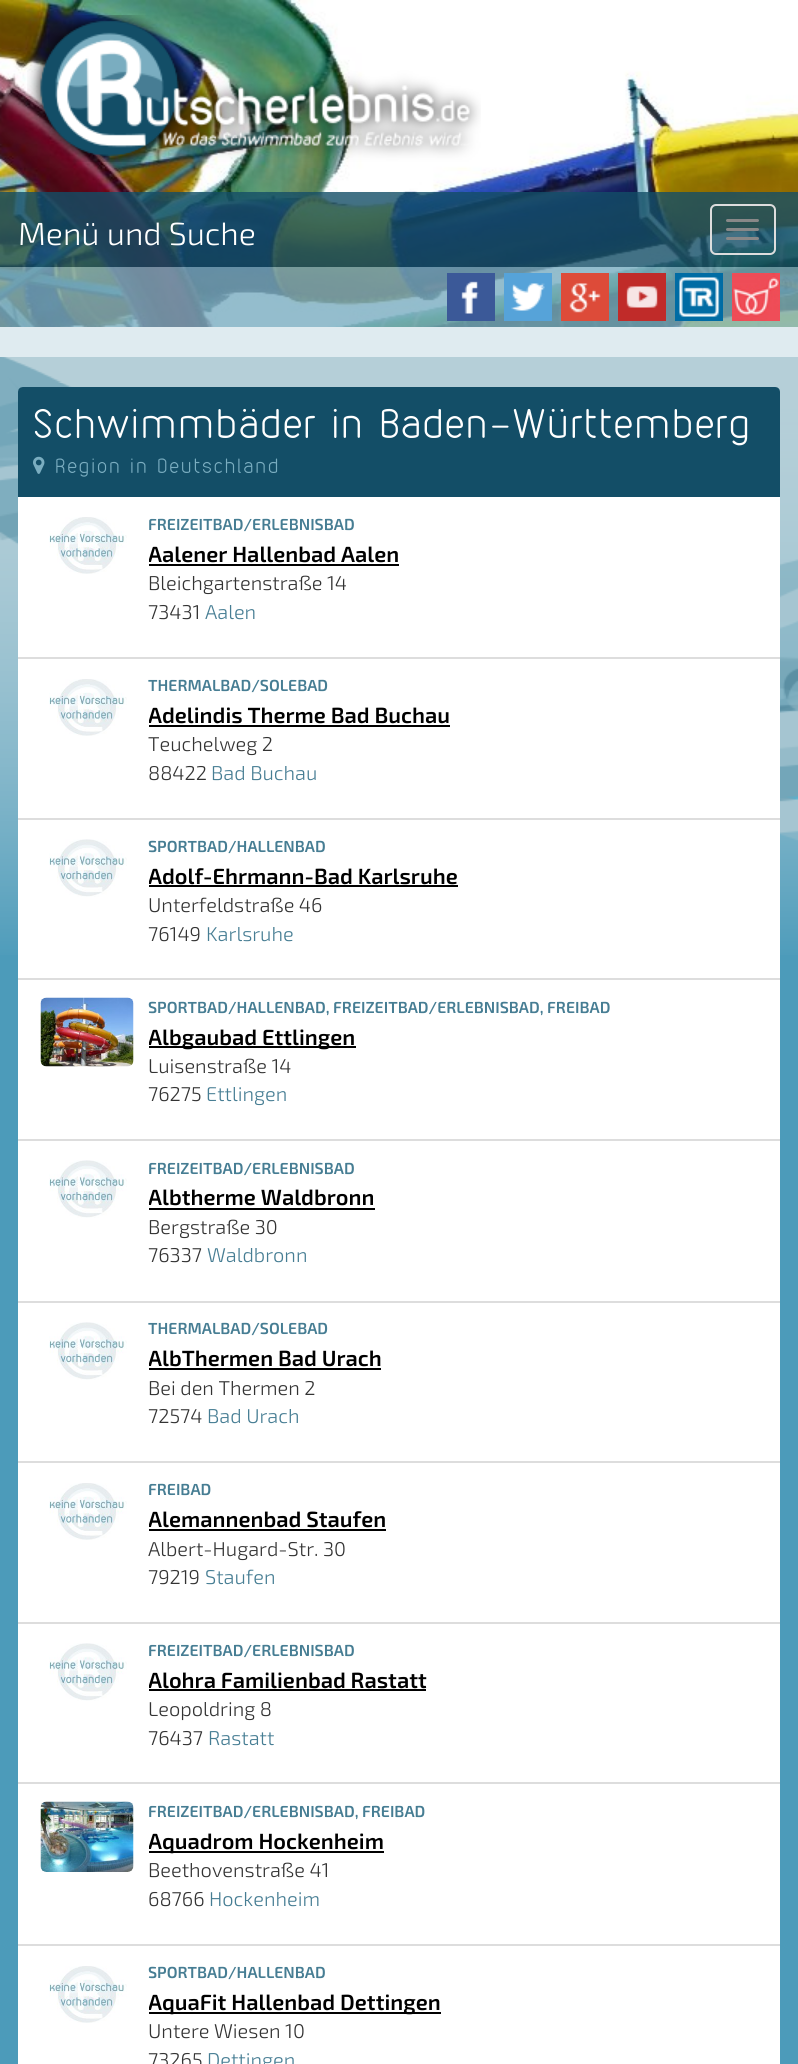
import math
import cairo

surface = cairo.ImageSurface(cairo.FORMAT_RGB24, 798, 2064)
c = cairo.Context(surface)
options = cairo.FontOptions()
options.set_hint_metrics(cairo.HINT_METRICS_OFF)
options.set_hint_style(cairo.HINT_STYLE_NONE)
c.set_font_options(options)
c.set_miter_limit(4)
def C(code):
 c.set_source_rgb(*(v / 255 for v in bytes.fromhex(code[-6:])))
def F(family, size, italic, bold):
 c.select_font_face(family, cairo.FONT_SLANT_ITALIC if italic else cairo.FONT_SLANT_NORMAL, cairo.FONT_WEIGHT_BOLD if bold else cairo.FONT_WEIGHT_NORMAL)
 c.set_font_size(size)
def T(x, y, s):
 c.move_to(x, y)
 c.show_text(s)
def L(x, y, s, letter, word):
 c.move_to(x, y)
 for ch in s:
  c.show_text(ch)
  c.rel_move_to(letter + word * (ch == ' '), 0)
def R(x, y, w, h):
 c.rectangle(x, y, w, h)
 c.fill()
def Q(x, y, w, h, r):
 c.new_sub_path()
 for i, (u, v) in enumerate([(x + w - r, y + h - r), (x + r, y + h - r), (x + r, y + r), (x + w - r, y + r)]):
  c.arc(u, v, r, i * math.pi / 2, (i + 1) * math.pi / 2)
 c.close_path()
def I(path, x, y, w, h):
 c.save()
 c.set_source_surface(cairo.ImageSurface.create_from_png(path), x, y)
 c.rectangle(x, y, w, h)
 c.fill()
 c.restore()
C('2d97c3')
c.paint()
I('1.png',0,357,798,598)
I('2.png',0,0,798,327)
I('3.png',27,15,454,147)
c.set_source_rgba(0.075,0.306,0.404,0.8)
R(0,192,798,75)
F('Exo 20 Light',32,0,0)
C('ffffff')
T(18,245,'Menü und Suche')
Q(711,205,64,49,5)
C('dddddd')
c.stroke()
C('888888')
Q(726,219,33,3,1.5)
c.fill()
Q(726,228,33,3,1.5)
c.fill()
Q(726,237,33,3,1.5)
c.fill()
c.set_source_rgba(0.478,0.678,0.753,0.8)
R(0,267,798,60)
I('4.png',447,273,48,48)
I('5.png',504,273,48,48)
I('6.png',561,273,48,48)
I('7.png',618,273,48,48)
I('8.png',675,273,48,48)
I('9.png',732,273,48,48)
c.set_source_rgba(0.427,0.627,0.702,0.5)
R(0,357,798,1707)
C('dfebf0')
R(0,327,798,30)
C('ffffff')
Q(18,387,762,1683,6)
c.fill()
C('134e67')
c.new_path()
c.move_to(23,387)
c.line_to(775,387)
c.curve_to(778,387,780,389,780,392)
c.line_to(780,497)
c.line_to(18,497)
c.line_to(18,392)
c.curve_to(18,389,20,387,23,387)
c.close_path()
c.fill()
F('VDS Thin',40,0,0)
C('ffffff')
L(33,438,'Schwimmbäder in Baden-Württemberg',2,0)
I('10.png',33,456,12,18)
F('VDS Thin',20,0,0)
C('7aadc0')
L(55,473,'Region in Deutschland',2,0)
C('dddddd')
R(18,657,762,2)
I('11.png',49,517,78,57)
F('Exo 20 SemiBold',16,0,0)
C('467d93')
T(148,530,'FREIZEITBAD/ERLEBNISBAD')
c.save()
c.rectangle(149,512,609,130)
c.clip()
F('Exo 20 SemiBold',22,0,0)
C('000000')
T(148,562,'Aalener Hallenbad Aalen')
c.restore()
C('000000')
R(149,564,250,2)
F('Exo 20 Light',20,0,0)
C('333333')
T(148,590,'Bleichgartenstraße 14')
T(148,619,'73431')
C('467d93')
T(205,619,'Aalen')
I('11.png',49,679,78,57)
F('Exo 20 SemiBold',16,0,0)
T(148,691,'THERMALBAD/SOLEBAD')
c.save()
c.rectangle(149,674,609,129)
c.clip()
F('Exo 20 SemiBold',22,0,0)
C('000000')
T(148,723,'Adelindis Therme Bad Buchau')
c.restore()
C('000000')
R(149,725,301,2)
F('Exo 20 Light',20,0,0)
C('333333')
T(148,751,'Teuchelweg 2')
T(148,780,'88422')
C('467d93')
T(211,780,'Bad Buchau')
C('dddddd')
R(18,818,762,2)
R(18,978,762,2)
I('12.png',49,839,78,58)
F('Exo 20 SemiBold',16,0,0)
C('467d93')
T(148,852,'SPORTBAD/HALLENBAD')
c.save()
c.rectangle(149,834,609,129)
c.clip()
F('Exo 20 SemiBold',22,0,0)
C('000000')
T(148,884,'Adolf-Ehrmann-Bad Karlsruhe')
c.restore()
C('000000')
R(149,885,309,2)
F('Exo 20 Light',20,0,0)
C('333333')
T(148,912,'Unterfeldstraße 46')
T(148,941,'76149')
C('467d93')
T(206,941,'Karlsruhe')
I('13.png',40,997,94,70)
F('Exo 20 SemiBold',16,0,0)
T(148,1013,'SPORTBAD/HALLENBAD, FREIZEITBAD/ERLEBNISBAD, FREIBAD')
C('000000')
R(149,1046,207,2)
c.save()
c.rectangle(149,995,609,129)
c.clip()
F('Exo 20 SemiBold',22,0,0)
T(148,1045,'Albgaubad Ettlingen')
c.restore()
F('Exo 20 Light',20,0,0)
C('333333')
T(148,1073,'Luisenstraße 14')
T(148,1101,'76275')
C('467d93')
T(206,1101,'Ettlingen')
C('dddddd')
R(18,1139,762,2)
I('12.png',49,1160,78,58)
F('Exo 20 SemiBold',16,0,0)
C('467d93')
T(148,1174,'FREIZEITBAD/ERLEBNISBAD')
c.save()
c.rectangle(149,1155,609,131)
c.clip()
F('Exo 20 SemiBold',22,0,0)
C('000000')
T(148,1205,'Albtherme Waldbronn')
c.restore()
C('000000')
R(149,1208,226,2)
F('Exo 20 Light',20,0,0)
C('333333')
T(148,1234,'Bergstraße 30')
T(148,1262,'76337')
C('467d93')
T(207,1262,'Waldbronn')
C('dddddd')
R(18,1301,762,2)
R(18,1461,762,2)
I('12.png',49,1322,78,58)
F('Exo 20 SemiBold',16,0,0)
C('467d93')
T(148,1334,'THERMALBAD/SOLEBAD')
c.save()
c.rectangle(149,1317,609,129)
c.clip()
F('Exo 20 SemiBold',22,0,0)
C('000000')
T(148,1366,'AlbThermen Bad Urach')
c.restore()
C('000000')
R(149,1368,232,2)
F('Exo 20 Light',20,0,0)
C('333333')
T(148,1395,'Bei den Thermen 2')
T(148,1423,'72574')
C('467d93')
T(207,1423,'Bad Urach')
I('11.png',49,1483,78,57)
F('Exo 20 SemiBold',16,0,0)
T(148,1495,'FREIBAD')
c.save()
c.rectangle(149,1478,609,129)
c.clip()
F('Exo 20 SemiBold',22,0,0)
C('000000')
T(148,1527,'Alemannenbad Staufen')
c.restore()
C('000000')
R(149,1529,237,2)
F('Exo 20 Light',20,0,0)
C('333333')
T(148,1556,'Albert-Hugard-Str. 30')
T(148,1584,'79219')
C('467d93')
T(205,1584,'Staufen')
C('dddddd')
R(18,1622,762,2)
R(18,1782,762,2)
I('12.png',49,1643,78,58)
F('Exo 20 SemiBold',16,0,0)
C('467d93')
T(148,1656,'FREIZEITBAD/ERLEBNISBAD')
c.save()
c.rectangle(149,1638,609,129)
c.clip()
F('Exo 20 SemiBold',22,0,0)
C('000000')
T(148,1688,'Alohra Familienbad Rastatt')
c.restore()
C('000000')
R(149,1689,277,2)
F('Exo 20 Light',20,0,0)
C('333333')
T(148,1716,'Leopoldring 8')
T(148,1745,'76437')
C('467d93')
T(208,1745,'Rastatt')
C('dddddd')
R(18,1944,762,2)
I('14.png',40,1801,94,71)
F('Exo 20 SemiBold',16,0,0)
C('467d93')
T(148,1817,'FREIZEITBAD/ERLEBNISBAD, FREIBAD')
C('000000')
R(149,1851,235,2)
c.save()
c.rectangle(149,1799,609,130)
c.clip()
F('Exo 20 SemiBold',22,0,0)
T(148,1849,'Aquadrom Hockenheim')
c.restore()
F('Exo 20 Light',20,0,0)
C('333333')
T(148,1877,'Beethovenstraße 41')
T(148,1906,'68766')
C('467d93')
T(209,1906,'Hockenheim')
I('11.png',49,1966,78,57)
F('Exo 20 SemiBold',16,0,0)
T(148,1978,'SPORTBAD/HALLENBAD')
C('000000')
R(149,2012,292,2)
c.save()
c.rectangle(149,1961,609,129)
c.clip()
F('Exo 20 SemiBold',22,0,0)
T(148,2010,'AquaFit Hallenbad Dettingen')
c.restore()
F('Exo 20 Light',20,0,0)
C('333333')
T(148,2038,'Untere Wiesen 10')
T(148,2067,'73265')
C('467d93')
T(207,2067,'Dettingen')
surface.write_to_png('o.png')
